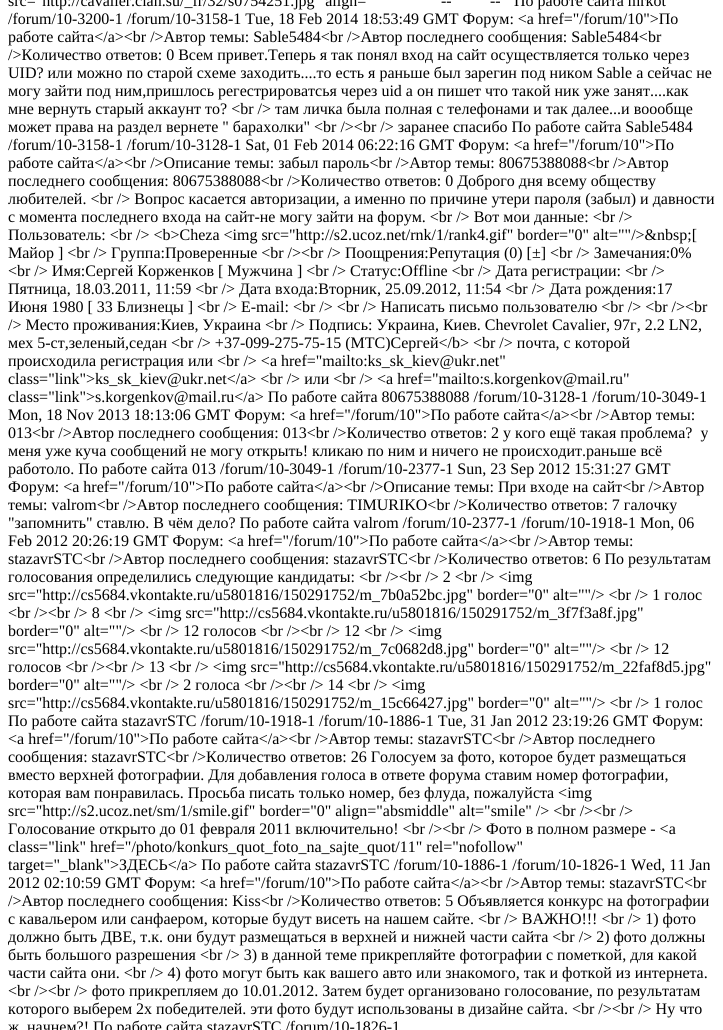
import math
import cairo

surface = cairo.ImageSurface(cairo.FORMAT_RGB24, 723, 1030)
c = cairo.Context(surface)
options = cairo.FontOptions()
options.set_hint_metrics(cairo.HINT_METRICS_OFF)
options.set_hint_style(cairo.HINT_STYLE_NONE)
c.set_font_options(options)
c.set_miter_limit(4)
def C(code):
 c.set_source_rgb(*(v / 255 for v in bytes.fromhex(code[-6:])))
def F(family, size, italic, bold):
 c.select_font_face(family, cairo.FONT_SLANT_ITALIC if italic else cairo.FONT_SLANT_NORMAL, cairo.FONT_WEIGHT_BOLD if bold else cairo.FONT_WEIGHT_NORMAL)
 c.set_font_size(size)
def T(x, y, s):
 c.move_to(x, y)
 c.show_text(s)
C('ffffff')
c.paint()
F('Liberation Serif',16,0,0)
C('000000')
T(8,6,'src="http://cavalier.clan.su/_fr/32/s0754251.jpg" align=')
T(441,6,'--')
T(490,6,'--')
T(514,6,'По работе сайта mrkot')
T(8,24,'/forum/10-3200-1 /forum/10-3158-1 Tue, 18 Feb 2014 18:53:49 GMT Форум: <a href="/forum/10">По')
T(8,42,'работе сайта</a><br />Автор темы: Sable5484<br />Автор последнего сообщения: Sable5484<br')
T(8,60,'/>Количество ответов: 0 Всем привет.Теперь я так понял вход на сайт осуществляется только через')
T(8,78,'UID? или можно по старой схеме заходить....то есть я раньше был зарегин под ником Sable а сейчас не')
T(8,96,'могу зайти под ним,пришлось регестрироватсья через uid а он пишет что такой ник уже занят....как')
T(8,114,'мне вернуть старый аккаунт то? <br /> там личка была полная с телефонами и так далее...и воообще')
T(8,132,'может права на раздел вернете " барахолки" <br /><br /> заранее спасибо По работе сайта Sable5484')
T(8,150,'/forum/10-3158-1 /forum/10-3128-1 Sat, 01 Feb 2014 06:22:16 GMT Форум: <a href="/forum/10">По')
T(8,168,'работе сайта</a><br />Описание темы: забыл пароль<br />Автор темы: 80675388088<br />Автор')
T(8,186,'последнего сообщения: 80675388088<br />Количество ответов: 0 Доброго дня всему обществу')
T(8,204,'любителей. <br /> Вопрос касается авторизации, а именно по причине утери пароля (забыл) и давности')
T(8,222,'с момента последнего входа на сайт-не могу зайти на форум. <br /> Вот мои данные: <br />')
T(8,240,'Пользователь: <br /> <b>Cheza <img src="http://s2.ucoz.net/rnk/1/rank4.gif" border="0" alt=""/>&nbsp;[')
T(8,258,'Майор ] <br /> Группа:Проверенные <br /><br /> Поощрения:Репутация (0) [±] <br /> Замечания:0%')
T(8,276,'<br /> Имя:Ceргей Корженков [ Мужчина ] <br /> Статус:Offline <br /> Дата регистрации: <br />')
T(8,294,'Пятница, 18.03.2011, 11:59 <br /> Дата входа:Вторник, 25.09.2012, 11:54 <br /> Дата рождения:17')
T(8,312,'Июня 1980 [ 33 Близнецы ] <br /> E-mail: <br /> <br /> Написать письмо пользователю <br /> <br /><br')
T(8,330,'/> Место проживания:Киев, Украина <br /> Подпись: Украина, Киев. Chevrolet Cavalier, 97г, 2.2 LN2,')
T(8,348,'мех 5-ст,зеленый,седан <br /> +37-099-275-75-15 (МТС)Сергей</b> <br /> почта, с которой')
T(8,366,'происходила регистрация или <br /> <a href="mailto:ks_sk_kiev@ukr.net"')
T(8,384,'class="link">ks_sk_kiev@ukr.net</a> <br /> или <br /> <a href="mailto:s.korgenkov@mail.ru"')
T(8,402,'class="link">s.korgenkov@mail.ru</a> По работе сайта 80675388088 /forum/10-3128-1 /forum/10-3049-1')
T(8,420,'Mon, 18 Nov 2013 18:13:06 GMT Форум: <a href="/forum/10">По работе сайта</a><br />Автор темы:')
T(8,438,'013<br />Автор последнего сообщения: 013<br />Количество ответов: 2 у кого ещё такая проблема?  у')
T(8,456,'меня уже куча сообщений не могу открыть! кликаю по ним и ничего не происходит.раньше всё')
T(8,474,'работоло. По работе сайта 013 /forum/10-3049-1 /forum/10-2377-1 Sun, 23 Sep 2012 15:31:27 GMT')
T(8,492,'Форум: <a href="/forum/10">По работе сайта</a><br />Описание темы: При входе на сайт<br />Автор')
T(8,510,'темы: valrom<br />Автор последнего сообщения: TIMURIKO<br />Количество ответов: 7 галочку')
T(8,528,'"запомнить" ставлю. В чём дело? По работе сайта valrom /forum/10-2377-1 /forum/10-1918-1 Mon, 06')
T(8,546,'Feb 2012 20:26:19 GMT Форум: <a href="/forum/10">По работе сайта</a><br />Автор темы:')
T(8,564,'stazavrSTC<br />Автор последнего сообщения: stazavrSTC<br />Количество ответов: 6 По результатам')
T(8,582,'голосования определились следующие кандидаты: <br /><br /> 2 <br /> <img')
T(8,600,'src="http://cs5684.vkontakte.ru/u5801816/150291752/m_7b0a52bc.jpg" border="0" alt=""/> <br /> 1 голос')
T(8,618,'<br /><br /> 8 <br /> <img src="http://cs5684.vkontakte.ru/u5801816/150291752/m_3f7f3a8f.jpg"')
T(8,636,'border="0" alt=""/> <br /> 12 голосов <br /><br /> 12 <br /> <img')
T(8,654,'src="http://cs5684.vkontakte.ru/u5801816/150291752/m_7c0682d8.jpg" border="0" alt=""/> <br /> 12')
T(8,672,'голосов <br /><br /> 13 <br /> <img src="http://cs5684.vkontakte.ru/u5801816/150291752/m_22faf8d5.jpg"')
T(8,690,'border="0" alt=""/> <br /> 2 голоса <br /><br /> 14 <br /> <img')
T(8,708,'src="http://cs5684.vkontakte.ru/u5801816/150291752/m_15c66427.jpg" border="0" alt=""/> <br /> 1 голос')
T(8,726,'По работе сайта stazavrSTC /forum/10-1918-1 /forum/10-1886-1 Tue, 31 Jan 2012 23:19:26 GMT Форум:')
T(8,744,'<a href="/forum/10">По работе сайта</a><br />Автор темы: stazavrSTC<br />Автор последнего')
T(8,762,'сообщения: stazavrSTC<br />Количество ответов: 26 Голосуем за фото, которое будет размещаться')
T(8,780,'вместо верхней фотографии. Для добавления голоса в ответе форума ставим номер фотографии,')
T(8,798,'которая вам понравилась. Просьба писать только номер, без флуда, пожалуйста <img')
T(8,816,'src="http://s2.ucoz.net/sm/1/smile.gif" border="0" align="absmiddle" alt="smile" /> <br /><br />')
T(8,834,'Голосование открыто до 01 февраля 2011 включительно! <br /><br /> Фото в полном размере - <a')
T(8,852,'class="link" href="/photo/konkurs_quot_foto_na_sajte_quot/11" rel="nofollow"')
T(8,870,'target="_blank">ЗДЕСЬ</a> По работе сайта stazavrSTC /forum/10-1886-1 /forum/10-1826-1 Wed, 11 Jan')
T(8,888,'2012 02:10:59 GMT Форум: <a href="/forum/10">По работе сайта</a><br />Автор темы: stazavrSTC<br')
T(8,906,'/>Автор последнего сообщения: Kiss<br />Количество ответов: 5 Объявляется конкурс на фотографии')
T(8,924,'с кавальером или санфаером, которые будут висеть на нашем сайте. <br /> ВАЖНО!!! <br /> 1) фото')
T(8,942,'должно быть ДВЕ, т.к. они будут размещаться в верхней и нижней части сайта <br /> 2) фото должны')
T(8,960,'быть большого разрешения <br /> 3) в данной теме прикрепляйте фотографии с пометкой, для какой')
T(8,978,'части сайта они. <br /> 4) фото могут быть как вашего авто или знакомого, так и фоткой из интернета.')
T(8,996,'<br /><br /> фото прикрепляем до 10.01.2012. Затем будет организовано голосование, по результатам')
T(8,1014,'которого выберем 2х победителей. эти фото будут использованы в дизайне сайта. <br /><br /> Ну что')
T(8,1032,'ж, начнем?! По работе сайта stazavrSTC /forum/10-1826-1')
surface.write_to_png('o.png')
